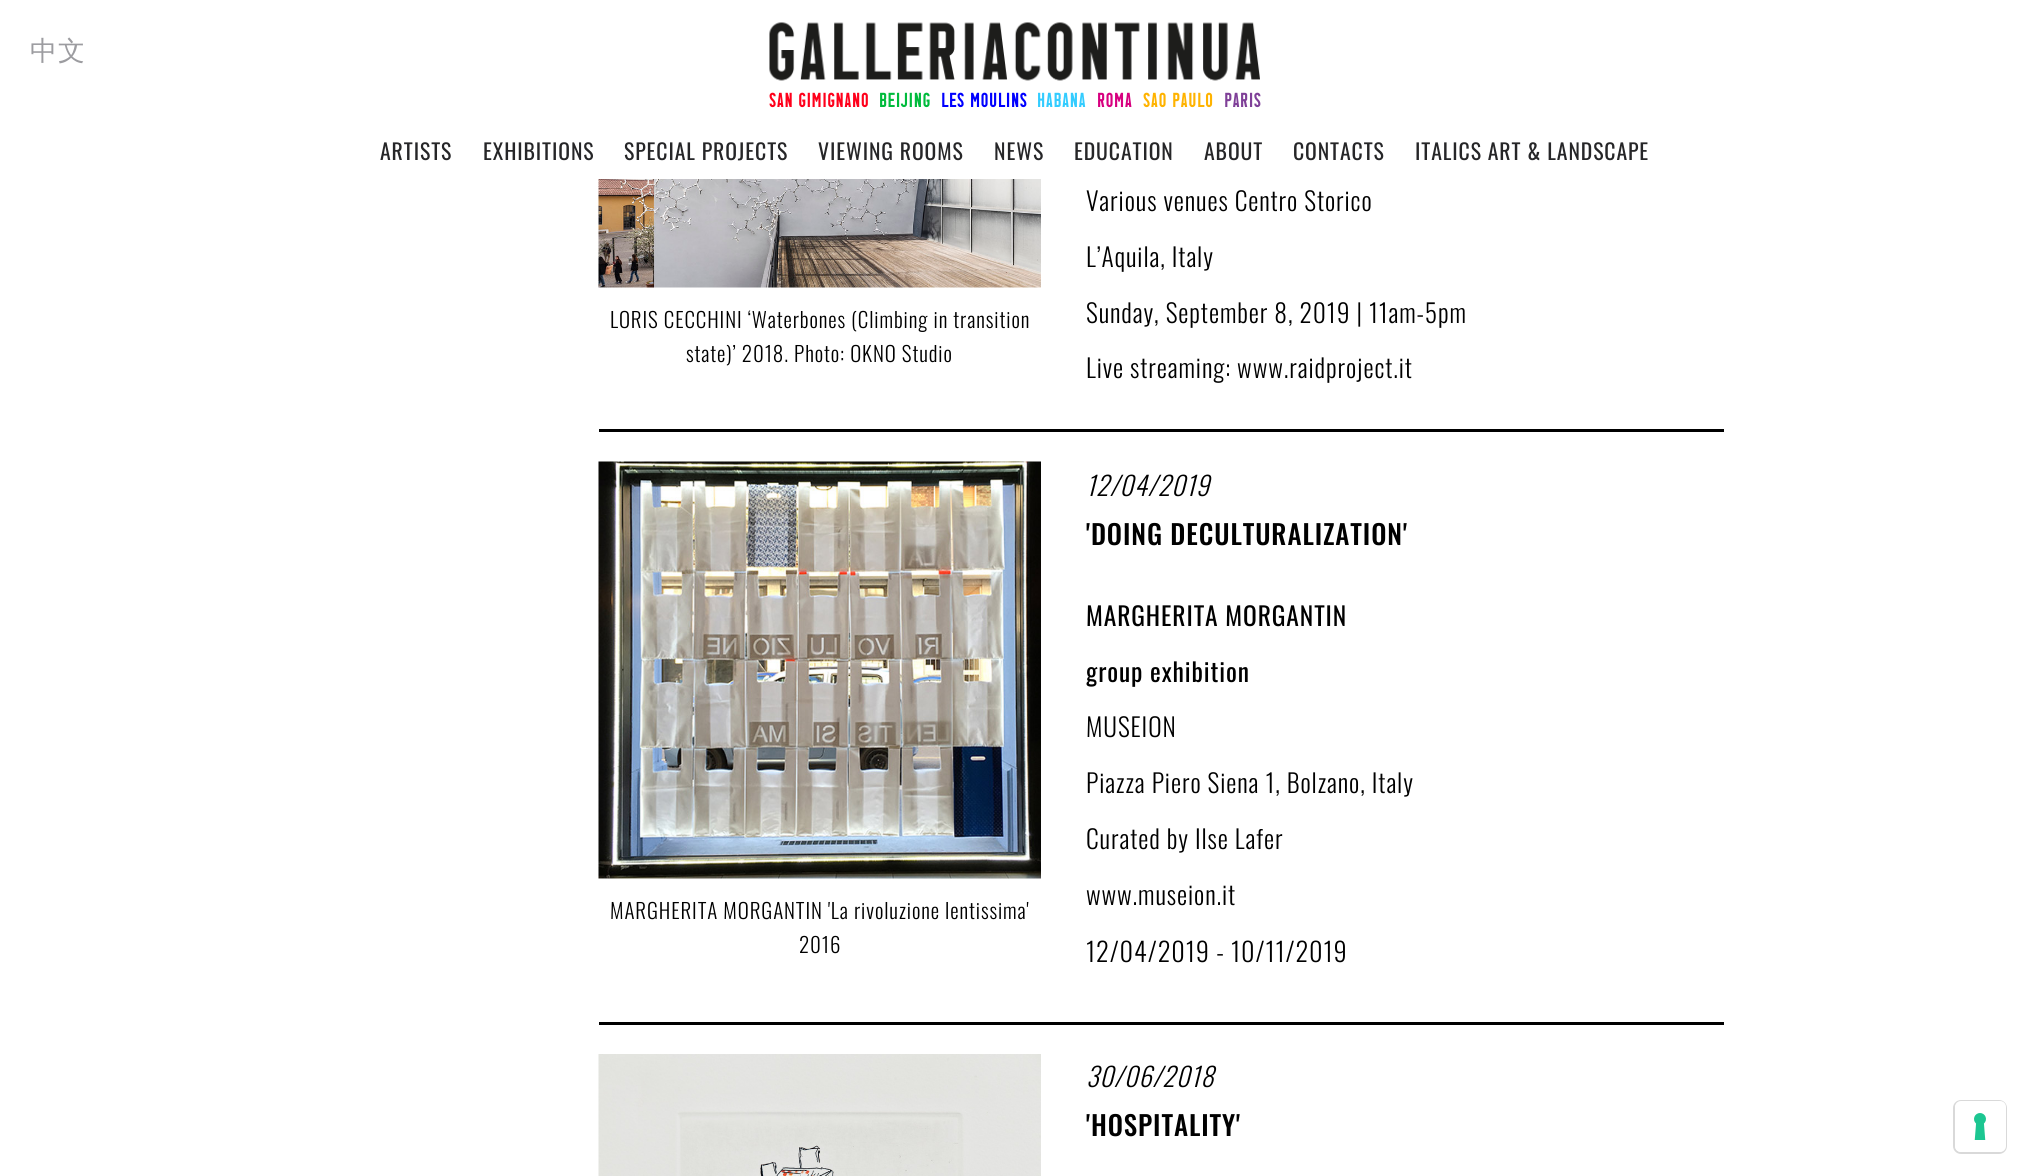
import math
import cairo

surface = cairo.ImageSurface(cairo.FORMAT_RGB24, 2029, 1176)
c = cairo.Context(surface)
options = cairo.FontOptions()
options.set_hint_metrics(cairo.HINT_METRICS_OFF)
options.set_hint_style(cairo.HINT_STYLE_NONE)
c.set_font_options(options)
c.set_miter_limit(4)
def C(code):
 c.set_source_rgb(*(v / 255 for v in bytes.fromhex(code[-6:])))
def F(family, size, italic, bold):
 c.select_font_face(family, cairo.FONT_SLANT_ITALIC if italic else cairo.FONT_SLANT_NORMAL, cairo.FONT_WEIGHT_BOLD if bold else cairo.FONT_WEIGHT_NORMAL)
 c.set_font_size(size)
def L(x, y, s, letter, word):
 c.move_to(x, y)
 for ch in s:
  c.show_text(ch)
  c.rel_move_to(letter + word * (ch == ' '), 0)
def R(x, y, w, h):
 c.rectangle(x, y, w, h)
 c.fill()
def Q(x, y, w, h, r):
 c.new_sub_path()
 for i, (u, v) in enumerate([(x + w - r, y + h - r), (x + r, y + h - r), (x + r, y + r), (x + w - r, y + r)]):
  c.arc(u, v, r, i * math.pi / 2, (i + 1) * math.pi / 2)
 c.close_path()
def I(path, x, y, w, h):
 c.save()
 c.set_source_surface(cairo.ImageSurface.create_from_png(path), x, y)
 c.rectangle(x, y, w, h)
 c.fill()
 c.restore()
C('ffffff')
c.paint()
F('WenQuanYi Zen Hei Medium',27,0,0)
C('9c9ca0')
L(30,60,'中文',.9,0)
I('1.png',769,22,491,59)
F('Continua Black',17.75,0,0)
C('ff001b')
L(769,107,'SAN GIMIGNANO',.5,0)
C('00bb3c')
L(879,107,'BEIJING',.5,0)
C('0000ff')
L(941,107,'LES MOULINS',.5,0)
C('33ccff')
L(1037,107,'HABANA',.5,0)
C('d7007f')
L(1097,107,'ROMA',.5,0)
C('ffb300')
L(1143,107,'SAO PAULO',.5,0)
C('7f4098')
L(1224,107,'PARIS',.5,0)
F('Oswald',21.75,0,0)
C('262628')
L(380,160,'ARTISTS',.9,0)
L(483,160,'EXHIBITIONS',.9,0)
L(624,160,'SPECIAL PROJECTS',.9,0)
L(818,160,'VIEWING ROOMS',.9,0)
L(994,160,'NEWS',.9,0)
L(1074,160,'EDUCATION',.9,0)
L(1204,160,'ABOUT',.9,0)
L(1293,160,'CONTACTS',.9,0)
L(1415,160,'ITALICS ART & LANDSCAPE',.9,0)
I('2.png',598,179,443,109)
F('Oswald Light',21,0,0)
C('000000')
L(610,328,'LORIS CECCHINI ‘Waterbones (Climbing in transition',.9,0)
L(686,362,'state)’ 2018. Photo: OKNO Studio',.9,0)
F('Oswald Light',25.5,0,0)
L(1086,211,'Various venues Centro Storico',.9,0)
L(1086,267,'L’Aquila, Italy',.9,0)
L(1086,323,'Sunday, September 8, 2019 | 11am-5pm',.9,0)
L(1086,378,'Live streaming: www.raidproject.it',.9,0)
R(599,429,1125,3)
I('3.png',598,461,443,418)
F('Oswald Light',21,0,0)
L(610,919,'MARGHERITA MORGANTIN \'La rivoluzione lentissima\'',.9,0)
L(799,953,'2016',.9,0)
F('Oswald Light',26.25,1,0)
L(1086,496,'12/04/2019',.9,0)
F('Oswald Medium',27,0,0)
L(1086,545,'\'DOING DECULTURALIZATION\'',.9,0)
F('Oswald',25.5,0,0)
L(1086,626,'MARGHERITA MORGANTIN',.9,0)
L(1086,682,'group exhibition',.9,0)
F('Oswald Light',25.5,0,0)
L(1086,737,'MUSEION',.9,0)
L(1086,793,'Piazza Piero Siena 1, Bolzano, Italy',.9,0)
L(1086,849,'Curated by Ilse Lafer',.9,0)
L(1086,905,'www.museion.it',.9,0)
F('Oswald Light',26.25,0,0)
L(1086,962,'12/04/2019 - 10/11/2019',.9,0)
R(599,1022,1125,3)
I('4.png',598,1054,443,122)
F('Oswald Light',26.25,1,0)
L(1086,1087,'30/06/2018',.9,0)
F('Oswald Medium',27,0,0)
L(1086,1136,'\'HOSPITALITY\'',.9,0)
Q(1954,1101,52,52,7)
C('d9d9d9')
c.stroke()
C('ffffff')
Q(1955,1101,51,51,6)
c.fill()
I('5.png',1974,1113,12,27)
surface.write_to_png('o.png')
